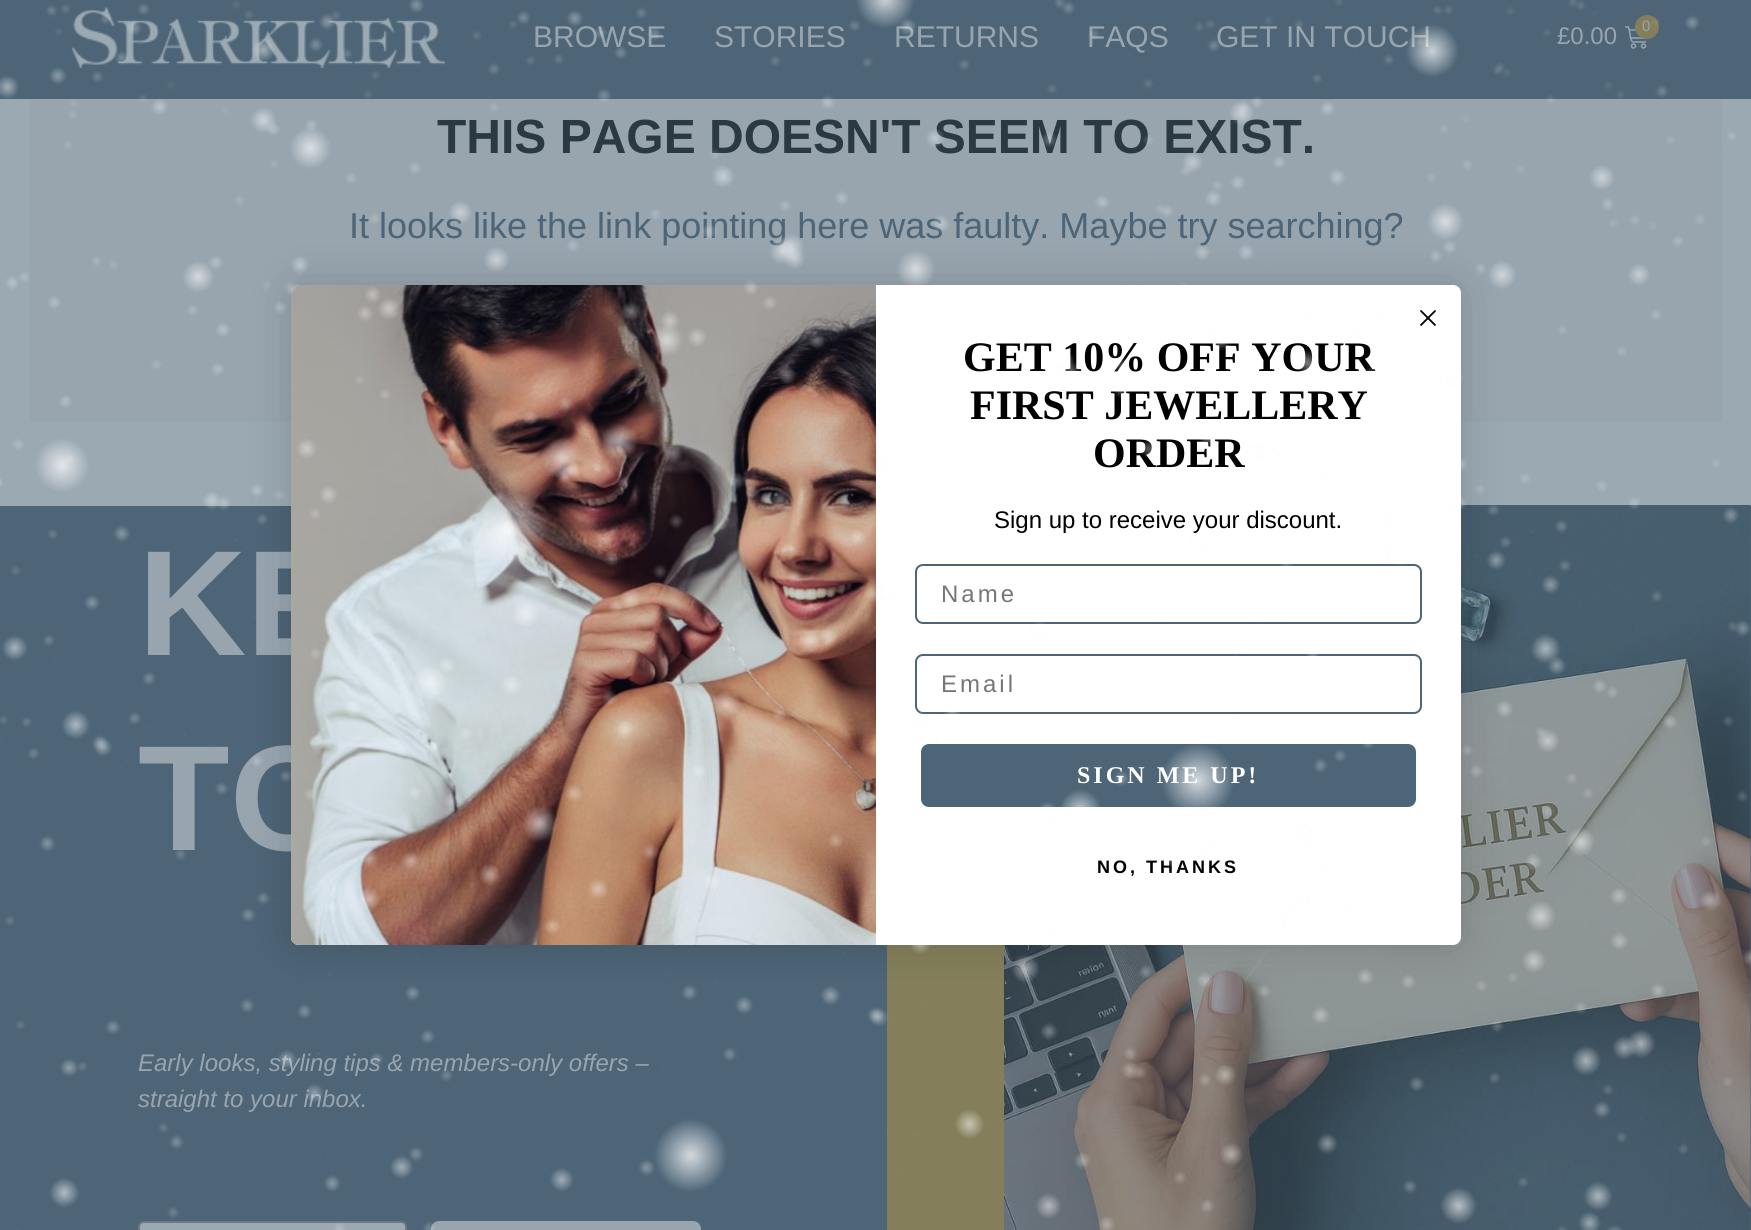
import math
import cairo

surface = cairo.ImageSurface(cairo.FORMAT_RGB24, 1751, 1230)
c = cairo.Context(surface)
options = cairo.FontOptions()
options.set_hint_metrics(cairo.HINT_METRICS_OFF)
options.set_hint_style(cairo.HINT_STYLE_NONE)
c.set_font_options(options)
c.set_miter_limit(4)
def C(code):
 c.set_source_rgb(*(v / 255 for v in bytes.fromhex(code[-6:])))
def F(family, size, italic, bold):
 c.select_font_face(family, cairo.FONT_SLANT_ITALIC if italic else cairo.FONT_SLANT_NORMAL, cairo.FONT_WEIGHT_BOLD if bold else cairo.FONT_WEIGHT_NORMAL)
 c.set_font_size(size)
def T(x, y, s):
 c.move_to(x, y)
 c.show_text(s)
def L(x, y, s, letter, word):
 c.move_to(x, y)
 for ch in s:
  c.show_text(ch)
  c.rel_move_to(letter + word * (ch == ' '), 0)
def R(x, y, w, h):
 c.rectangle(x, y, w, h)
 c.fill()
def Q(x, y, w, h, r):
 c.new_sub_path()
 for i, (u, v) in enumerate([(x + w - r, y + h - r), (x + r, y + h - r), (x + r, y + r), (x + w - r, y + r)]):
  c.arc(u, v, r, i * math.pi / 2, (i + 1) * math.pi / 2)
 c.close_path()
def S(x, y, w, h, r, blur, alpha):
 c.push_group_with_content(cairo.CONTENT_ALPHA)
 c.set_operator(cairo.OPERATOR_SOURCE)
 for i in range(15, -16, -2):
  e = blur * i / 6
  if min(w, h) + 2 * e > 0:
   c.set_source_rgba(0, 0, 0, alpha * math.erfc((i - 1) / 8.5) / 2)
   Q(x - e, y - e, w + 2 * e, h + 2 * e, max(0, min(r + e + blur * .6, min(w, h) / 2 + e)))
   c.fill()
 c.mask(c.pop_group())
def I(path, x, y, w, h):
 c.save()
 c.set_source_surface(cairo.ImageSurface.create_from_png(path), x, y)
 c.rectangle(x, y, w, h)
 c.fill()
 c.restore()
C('9ba9b3')
c.paint()
C('4d6577')
R(0,0,1751,99)
I('2.png',71,7,374,61)
F('Liberation Sans',30,0,0)
C('98a5af')
T(533,47,'BROWSE')
T(714,47,'STORIES')
T(894,47,'RETURNS')
T(1087,47,'FAQS')
T(1216,47,'GET IN TOUCH')
F('Liberation Sans',24,0,0)
T(1557,44,'£0.00')
I('3.png',1625,26,22,23)
C('847f5a')
c.arc(1647,27,12,0,2 * math.pi)
c.fill()
F('Liberation Sans',15,0,0)
C('98a5af')
T(1642,31,'0')
R(30,99,1692,323)
F('Liberation Sans',48,0,1)
C('2b3943')
T(437,153,'THIS PAGE DOESN\'T SEEM TO EXIST.')
F('Liberation Sans',36,0,0)
C('4d6577')
T(349,238,'It looks like the link pointing here was faulty. Maybe try searching?')
R(0,506,1751,724)
F('Liberation Sans',150,0,1)
C('98a5af')
T(138,655,'KE')
T(138,850,'TO')
F('Liberation Sans',24,1,0)
T(138,1071,'Early looks, styling tips & members-only offers –')
T(138,1107,'straight to your inbox.')
C('9ba9b3')
Q(139,1222,267,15,5)
c.fill_preserve()
C('6c7a85')
c.stroke()
C('98a5af')
Q(431,1221,270,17,8)
c.fill()
C('847f5a')
R(887,945,117,285)
I('4.png',1004,505,747,725)
C('000000')
S(291,285,1170,660,8,22.5,.15)
C('ffffff')
Q(291,285,1170,660,8)
c.fill()
c.new_path()
c.move_to(1421,311)
c.line_to(1435,325)
c.move_to(1421,325)
c.line_to(1435,311)
c.close_path()
C('000000')
c.set_line_width(1.8)
c.set_line_cap(cairo.LINE_CAP_ROUND)
c.set_line_join(cairo.LINE_JOIN_ROUND)
c.stroke()
I('5.png',291,285,585,660)
F('Liberation Serif',42,0,1)
T(963,371,'GET 10% OFF YOUR')
T(970,419,'FIRST JEWELLERY')
T(1093,467,'ORDER')
F('Liberation Sans',24,0,0)
T(994,528,'Sign up to receive your discount.')
Q(916,565,505,58,7)
C('4d6577')
c.set_line_width(2)
c.set_line_cap(cairo.LINE_CAP_BUTT)
c.set_line_join(cairo.LINE_JOIN_MITER)
c.stroke()
C('767676')
L(941,602,'Name',3,0)
Q(916,655,505,58,7)
C('4d6577')
c.stroke()
C('767676')
L(941,692,'Email',3,0)
C('4d6577')
Q(922,745,493,61,7)
c.fill_preserve()
c.stroke()
F('Liberation Serif',24,0,1)
C('ffffff')
L(1077,783,'SIGN ME UP!',3,0)
F('Liberation Sans',18,0,1)
C('000000')
L(1097,873,'NO, THANKS',3,0)
I('1.png',0,0,1751,1230)
surface.write_to_png('o.png')
